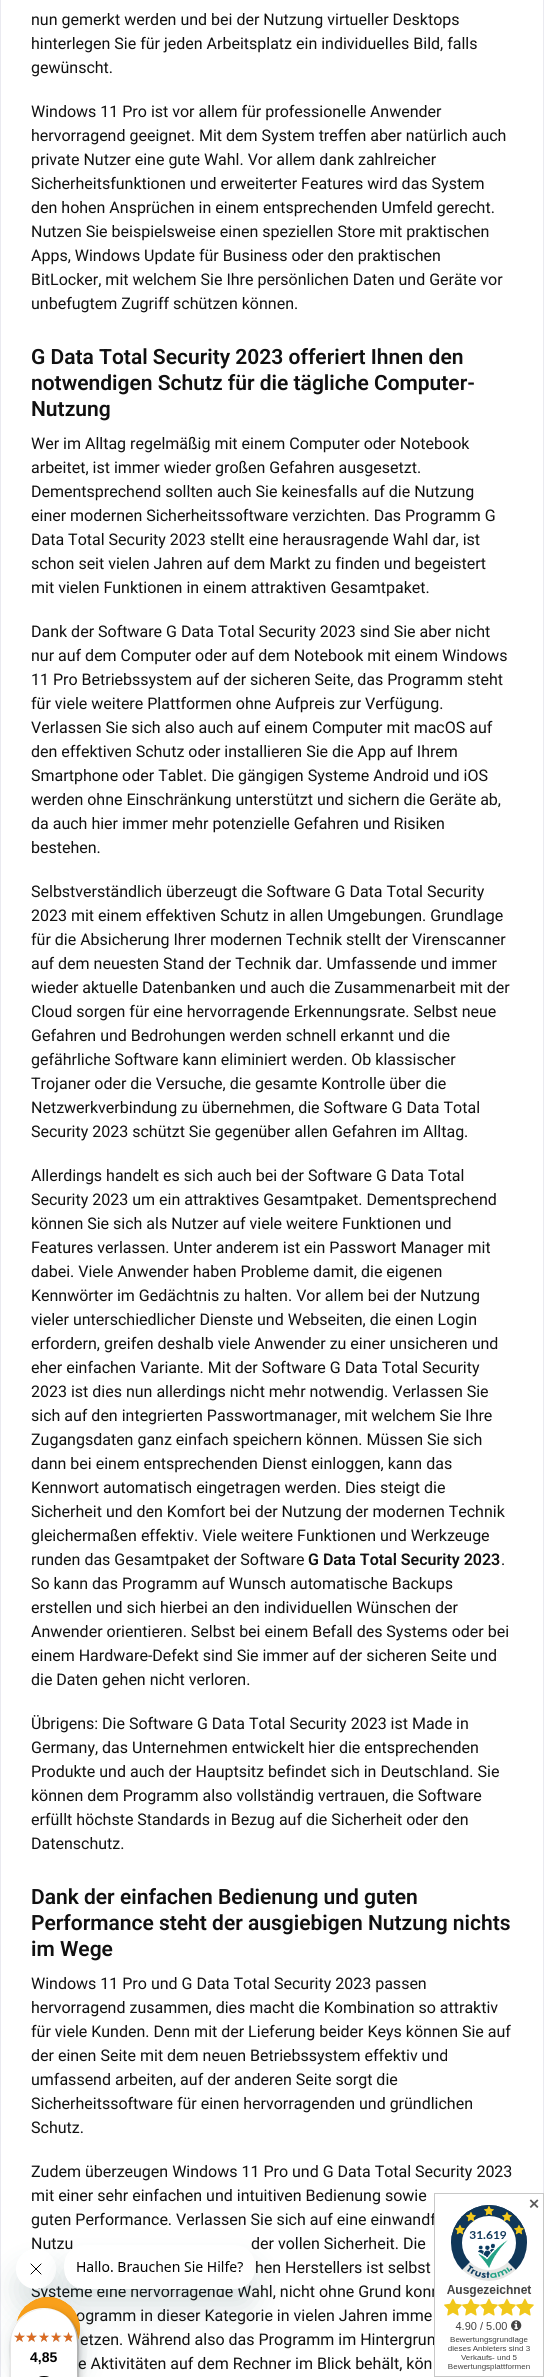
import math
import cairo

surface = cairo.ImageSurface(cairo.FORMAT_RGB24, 544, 2377)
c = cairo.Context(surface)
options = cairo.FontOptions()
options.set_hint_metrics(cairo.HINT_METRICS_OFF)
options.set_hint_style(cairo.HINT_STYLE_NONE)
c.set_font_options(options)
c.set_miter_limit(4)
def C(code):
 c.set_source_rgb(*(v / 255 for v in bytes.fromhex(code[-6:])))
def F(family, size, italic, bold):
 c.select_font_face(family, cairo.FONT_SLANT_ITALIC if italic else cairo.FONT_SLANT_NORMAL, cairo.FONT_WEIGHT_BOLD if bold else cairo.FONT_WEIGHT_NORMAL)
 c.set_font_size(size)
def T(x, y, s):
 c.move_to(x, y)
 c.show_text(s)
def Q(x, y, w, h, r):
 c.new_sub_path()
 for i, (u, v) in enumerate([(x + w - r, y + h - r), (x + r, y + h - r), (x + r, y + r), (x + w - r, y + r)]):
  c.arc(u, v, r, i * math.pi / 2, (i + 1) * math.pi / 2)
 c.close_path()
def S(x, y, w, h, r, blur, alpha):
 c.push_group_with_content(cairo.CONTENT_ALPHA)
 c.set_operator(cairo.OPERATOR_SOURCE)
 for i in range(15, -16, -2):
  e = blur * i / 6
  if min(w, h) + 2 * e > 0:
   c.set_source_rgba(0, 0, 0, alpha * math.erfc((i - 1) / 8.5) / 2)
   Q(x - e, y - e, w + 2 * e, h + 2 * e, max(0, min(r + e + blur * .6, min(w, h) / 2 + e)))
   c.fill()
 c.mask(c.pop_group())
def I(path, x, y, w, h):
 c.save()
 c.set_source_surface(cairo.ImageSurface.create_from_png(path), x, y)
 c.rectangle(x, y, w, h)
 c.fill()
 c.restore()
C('ffffff')
c.paint()
c.rectangle(.5,-.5,543,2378)
C('eaeaf0')
c.set_line_width(1)
c.stroke()
F('Roboto',16,0,0)
C('111111')
T(31,25,'nun gemerkt werden und bei der Nutzung virtueller Desktops')
T(31,49,'hinterlegen Sie für jeden Arbeitsplatz ein individuelles Bild, falls')
T(31,73,'gewünscht.')
T(31,117,'Windows 11 Pro ist vor allem für professionelle Anwender')
T(31,141,'hervorragend geeignet. Mit dem System treffen aber natürlich auch')
T(31,165,'private Nutzer eine gute Wahl. Vor allem dank zahlreicher')
T(31,189,'Sicherheitsfunktionen und erweiterter Features wird das System')
T(31,213,'den hohen Ansprüchen in einem entsprechenden Umfeld gerecht.')
T(31,237,'Nutzen Sie beispielsweise einen speziellen Store mit praktischen')
T(31,261,'Apps, Windows Update für Business oder den praktischen')
T(31,285,'BitLocker, mit welchem Sie Ihre persönlichen Daten und Geräte vor')
T(31,309,'unbefugtem Zugriff schützen können.')
F('Roboto SemiBold',21,0,0)
T(31,364,'G Data Total Security 2023 offeriert Ihnen den')
T(31,390,'notwendigen Schutz für die tägliche Computer-')
T(31,416,'Nutzung')
F('Roboto',16,0,0)
T(31,449,'Wer im Alltag regelmäßig mit einem Computer oder Notebook')
T(31,473,'arbeitet, ist immer wieder großen Gefahren ausgesetzt.')
T(31,497,'Dementsprechend sollten auch Sie keinesfalls auf die Nutzung')
T(31,521,'einer modernen Sicherheitssoftware verzichten. Das Programm G')
T(31,545,'Data Total Security 2023 stellt eine herausragende Wahl dar, ist')
T(31,569,'schon seit vielen Jahren auf dem Markt zu finden und begeistert')
T(31,593,'mit vielen Funktionen in einem attraktiven Gesamtpaket.')
T(31,637,'Dank der Software G Data Total Security 2023 sind Sie aber nicht')
T(31,661,'nur auf dem Computer oder auf dem Notebook mit einem Windows')
T(31,685,'11 Pro Betriebssystem auf der sicheren Seite, das Programm steht')
T(31,709,'für viele weitere Plattformen ohne Aufpreis zur Verfügung.')
T(31,733,'Verlassen Sie sich also auch auf einem Computer mit macOS auf')
T(31,757,'den effektiven Schutz oder installieren Sie die App auf Ihrem')
T(31,781,'Smartphone oder Tablet. Die gängigen Systeme Android und iOS')
T(31,805,'werden ohne Einschränkung unterstützt und sichern die Geräte ab,')
T(31,829,'da auch hier immer mehr potenzielle Gefahren und Risiken')
T(31,853,'bestehen.')
T(31,897,'Selbstverständlich überzeugt die Software G Data Total Security')
T(31,921,'2023 mit einem effektiven Schutz in allen Umgebungen. Grundlage')
T(31,945,'für die Absicherung Ihrer modernen Technik stellt der Virenscanner')
T(31,969,'auf dem neuesten Stand der Technik dar. Umfassende und immer')
T(31,993,'wieder aktuelle Datenbanken und auch die Zusammenarbeit mit der')
T(31,1017,'Cloud sorgen für eine hervorragende Erkennungsrate. Selbst neue')
T(31,1041,'Gefahren und Bedrohungen werden schnell erkannt und die')
T(31,1065,'gefährliche Software kann eliminiert werden. Ob klassischer')
T(31,1089,'Trojaner oder die Versuche, die gesamte Kontrolle über die')
T(31,1113,'Netzwerkverbindung zu übernehmen, die Software G Data Total')
T(31,1137,'Security 2023 schützt Sie gegenüber allen Gefahren im Alltag.')
T(31,1181,'Allerdings handelt es sich auch bei der Software G Data Total')
T(31,1205,'Security 2023 um ein attraktives Gesamtpaket. Dementsprechend')
T(31,1229,'können Sie sich als Nutzer auf viele weitere Funktionen und')
T(31,1253,'Features verlassen. Unter anderem ist ein Passwort Manager mit')
T(31,1277,'dabei. Viele Anwender haben Probleme damit, die eigenen')
T(31,1301,'Kennwörter im Gedächtnis zu halten. Vor allem bei der Nutzung')
T(31,1325,'vieler unterschiedlicher Dienste und Webseiten, die einen Login')
T(31,1349,'erfordern, greifen deshalb viele Anwender zu einer unsicheren und')
T(31,1373,'eher einfachen Variante. Mit der Software G Data Total Security')
T(31,1397,'2023 ist dies nun allerdings nicht mehr notwendig. Verlassen Sie')
T(31,1421,'sich auf den integrierten Passwortmanager, mit welchem Sie Ihre')
T(31,1445,'Zugangsdaten ganz einfach speichern können. Müssen Sie sich')
T(31,1469,'dann bei einem entsprechenden Dienst einloggen, kann das')
T(31,1493,'Kennwort automatisch eingetragen werden. Dies steigt die')
T(31,1517,'Sicherheit und den Komfort bei der Nutzung der modernen Technik')
T(31,1541,'gleichermaßen effektiv. Viele weitere Funktionen und Werkzeuge')
T(31,1565,'runden das Gesamtpaket der Software')
F('Roboto SemiBold',16,0,0)
T(308,1565,'G Data Total Security 2023')
F('Roboto',16,0,0)
T(501,1565,'.')
T(31,1589,'So kann das Programm auf Wunsch automatische Backups')
T(31,1613,'erstellen und sich hierbei an den individuellen Wünschen der')
T(31,1637,'Anwender orientieren. Selbst bei einem Befall des Systems oder bei')
T(31,1661,'einem Hardware-Defekt sind Sie immer auf der sicheren Seite und')
T(31,1685,'die Daten gehen nicht verloren.')
T(31,1729,'Übrigens: Die Software G Data Total Security 2023 ist Made in')
T(31,1753,'Germany, das Unternehmen entwickelt hier die entsprechenden')
T(31,1777,'Produkte und auch der Hauptsitz befindet sich in Deutschland. Sie')
T(31,1801,'können dem Programm also vollständig vertrauen, die Software')
T(31,1825,'erfüllt höchste Standards in Bezug auf die Sicherheit oder den')
T(31,1849,'Datenschutz.')
F('Roboto SemiBold',21,0,0)
T(31,1904,'Dank der einfachen Bedienung und guten')
T(31,1930,'Performance steht der ausgiebigen Nutzung nichts')
T(31,1956,'im Wege')
F('Roboto',16,0,0)
T(31,1989,'Windows 11 Pro und G Data Total Security 2023 passen')
T(31,2013,'hervorragend zusammen, dies macht die Kombination so attraktiv')
T(31,2037,'für viele Kunden. Denn mit der Lieferung beider Keys können Sie auf')
T(31,2061,'der einen Seite mit dem neuen Betriebssystem effektiv und')
T(31,2085,'umfassend arbeiten, auf der anderen Seite sorgt die')
T(31,2109,'Sicherheitssoftware für einen hervorragenden und gründlichen')
T(31,2133,'Schutz.')
T(31,2177,'Zudem überzeugen Windows 11 Pro und G Data Total Security 2023')
T(31,2201,'mit einer sehr einfachen und intuitiven Bedienung sowie')
T(31,2225,'guten Performance. Verlassen Sie sich auf eine einwandf')
T(31,2249,'Nutzu')
T(251,2249,'der vollen Sicherheit. Die')
T(255,2273,'hen Herstellers ist selbst')
T(31,2297,'Systeme eine hervorragende Wahl, nicht ohne Grund konn')
T(76,2321,'ogramm in dieser Kategorie in vielen Jahren imme')
T(80,2345,'etzen. Während also das Programm im Hintergrun')
T(78,2369,'e Aktivitäten auf dem Rechner im Blick behält, kön')
I('1.png',434,2193,110,184)
F('DejaVu Sans',14,0,1)
C('595959')
T(528,2209,'✕')
c.save()
c.set_fill_rule(cairo.FILL_RULE_EVEN_ODD)
c.new_path()
c.move_to(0,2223)
c.line_to(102,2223)
c.line_to(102,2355)
c.line_to(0,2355)
c.close_path()
c.move_to(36,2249)
c.curve_to(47,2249,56,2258,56,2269)
c.curve_to(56,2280,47,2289,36,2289)
c.curve_to(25,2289,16,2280,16,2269)
c.curve_to(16,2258,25,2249,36,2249)
c.close_path()
c.clip()
C('17494d')
S(16,2269,40,40,20,15,.15)
c.restore()
I('3.png',30,2261,26,28)
C('17494d')
S(64,2265,191,44,20,15,.15)
I('2.png',64,2245,191,44)
S(16,2317,64,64,32,15,.15)
I('4.png',16,2297,64,45)
C('000000')
S(13,2311,68,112,34,4,.15)
S(11,2309,68,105,34,1,.15)
C('ffffff')
Q(10,2308,68,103,34)
c.fill()
c.set_source_rgba(0,0,0,0.1)
c.new_path()
c.move_to(45,2309)
c.curve_to(53,2309,61,2312,67,2317)
c.curve_to(50,2302,22,2308,13,2329)
c.curve_to(8,2339,10,2353,10,2364)
c.curve_to(10,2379,7,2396,19,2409)
c.curve_to(14,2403,11,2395,11,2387)
c.line_to(11,2343)
c.curve_to(11,2324,26,2309,45,2309)
c.close_path()
c.fill()
c.set_source_rgba(0,0,0,0.2)
c.new_path()
c.move_to(21,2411)
c.curve_to(38,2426,66,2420,75,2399)
c.curve_to(80,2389,78,2375,78,2364)
c.curve_to(78,2349,81,2332,69,2319)
c.curve_to(79,2332,77,2348,77,2363)
c.curve_to(77,2374,79,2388,74,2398)
c.curve_to(66,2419,39,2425,21,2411)
c.close_path()
c.fill()
c.set_source_rgba(0.196,0.196,0.196,0.2)
c.new_path()
c.move_to(17,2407)
c.curve_to(24,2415,33,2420,44,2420)
c.curve_to(63,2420,78,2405,78,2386)
c.line_to(78,2342)
c.curve_to(78,2331,73,2322,65,2315)
c.curve_to(72,2322,77,2331,77,2341)
c.line_to(77,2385)
c.curve_to(77,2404,62,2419,43,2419)
c.curve_to(33,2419,24,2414,17,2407)
c.close_path()
c.fill()
c.set_source_rgba(1,1,1,0.3)
c.set_fill_rule(cairo.FILL_RULE_EVEN_ODD)
c.new_path()
c.move_to(44,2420)
c.curve_to(63,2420,78,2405,78,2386)
c.curve_to(78,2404,62,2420,44,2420)
c.close_path()
c.move_to(78,2342)
c.curve_to(78,2323,63,2308,44,2308)
c.curve_to(62,2308,78,2323,78,2342)
c.close_path()
c.fill()
I('5.png',14,2332,11,10)
I('6.png',27,2332,10,10)
I('7.png',39,2332,10,10)
I('8.png',51,2332,11,10)
I('8.png',63,2332,11,10)
I('9.png',14,2332,11,10)
I('10.png',26,2332,11,10)
I('11.png',39,2332,10,10)
I('12.png',51,2332,10,10)
I('13.png',63,2332,9,10)
F('Liberation Sans',14,0,1)
C('000000')
T(30,2362,'4,85')
I('14.png',39,2376,10,1)
surface.write_to_png('o.png')
